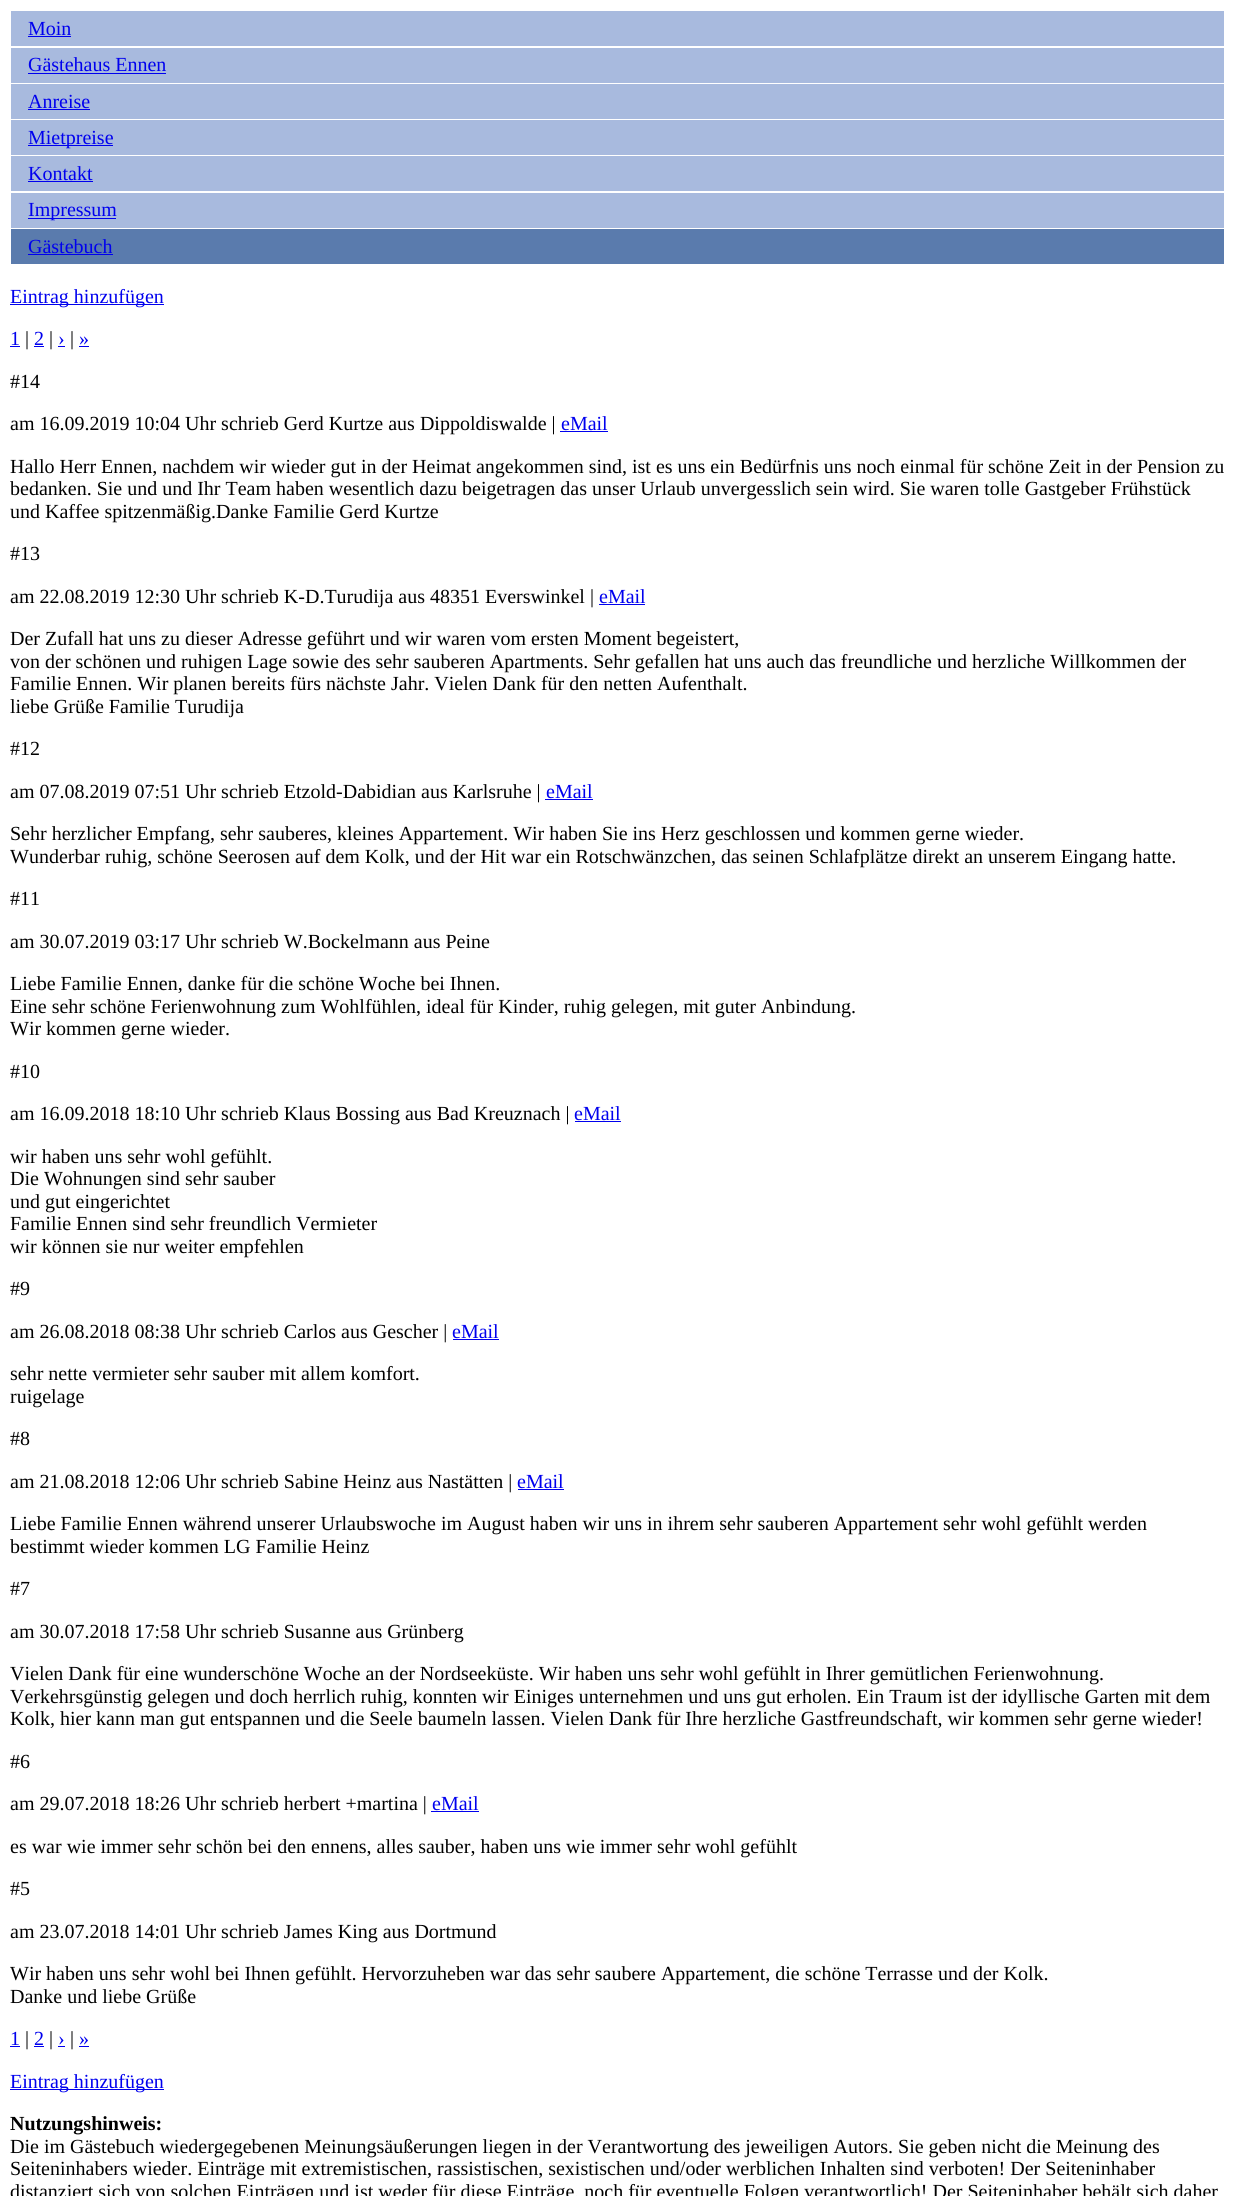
import math
import cairo

surface = cairo.ImageSurface(cairo.FORMAT_RGB24, 1234, 2196)
c = cairo.Context(surface)
options = cairo.FontOptions()
options.set_hint_metrics(cairo.HINT_METRICS_OFF)
options.set_hint_style(cairo.HINT_STYLE_NONE)
c.set_font_options(options)
c.set_miter_limit(4)
def C(code):
 c.set_source_rgb(*(v / 255 for v in bytes.fromhex(code[-6:])))
def F(family, size, italic, bold):
 c.select_font_face(family, cairo.FONT_SLANT_ITALIC if italic else cairo.FONT_SLANT_NORMAL, cairo.FONT_WEIGHT_BOLD if bold else cairo.FONT_WEIGHT_NORMAL)
 c.set_font_size(size)
def T(x, y, s):
 c.move_to(x, y)
 c.show_text(s)
def R(x, y, w, h):
 c.rectangle(x, y, w, h)
 c.fill()
C('ffffff')
c.paint()
C('a8bade')
R(11,11,1213,35)
F('Liberation Serif',20,0,0)
C('0000ee')
T(28,35,'Moin')
R(28,36,43,1)
C('a8bade')
R(11,48,1213,35)
C('0000ee')
T(28,71,'Gästehaus Ennen')
R(28,73,138,1)
C('a8bade')
R(11,84,1213,35)
C('0000ee')
T(28,108,'Anreise')
R(28,109,62,1)
C('a8bade')
R(11,120,1213,35)
C('0000ee')
R(28,145,85,1)
T(28,144,'Mietpreise')
C('a8bade')
R(11,156,1213,35)
C('0000ee')
T(28,180,'Kontakt')
R(28,181,65,1)
C('a8bade')
R(11,193,1213,35)
C('0000ee')
R(28,218,88,1)
T(28,216,'Impressum')
C('5a7bad')
R(11,229,1213,35)
C('0000ee')
T(28,253,'Gästebuch')
R(28,254,85,1)
R(10,304,154,1)
T(10,303,'Eintrag hinzufügen')
T(10,345,'1')
R(10,346,10,1)
C('000000')
T(25,345,'|')
C('0000ee')
T(34,345,'2')
R(34,346,10,1)
C('000000')
T(49,345,'|')
C('0000ee')
T(58,345,'›')
R(58,346,7,1)
C('000000')
T(70,345,'|')
C('0000ee')
T(79,345,'»')
R(79,346,10,1)
C('000000')
T(10,388,'#14')
T(10,430,'am 16.09.2019 10:04 Uhr schrieb Gerd Kurtze aus Dippoldiswalde |')
C('0000ee')
T(561,430,'eMail')
R(560,431,48,1)
C('000000')
T(10,473,'Hallo Herr Ennen, nachdem wir wieder gut in der Heimat angekommen sind, ist es uns ein Bedürfnis uns noch einmal für schöne Zeit in der Pension zu')
T(10,495,'bedanken. Sie und und Ihr Team haben wesentlich dazu beigetragen das unser Urlaub unvergesslich sein wird. Sie waren tolle Gastgeber Frühstück')
T(10,518,'und Kaffee spitzenmäßig.Danke Familie Gerd Kurtze')
T(10,560,'#13')
T(10,603,'am 22.08.2019 12:30 Uhr schrieb K-D.Turudija aus 48351 Everswinkel |')
C('0000ee')
T(599,603,'eMail')
R(599,604,46,1)
C('000000')
T(10,645,'Der Zufall hat uns zu dieser Adresse geführt und wir waren vom ersten Moment begeistert,')
T(10,668,'von der schönen und ruhigen Lage sowie des sehr sauberen Apartments. Sehr gefallen hat uns auch das freundliche und herzliche Willkommen der')
T(10,690,'Familie Ennen. Wir planen bereits fürs nächste Jahr. Vielen Dank für den netten Aufenthalt.')
T(10,713,'liebe Grüße Familie Turudija')
T(10,755,'#12')
T(10,798,'am 07.08.2019 07:51 Uhr schrieb Etzold-Dabidian aus Karlsruhe |')
C('0000ee')
T(546,798,'eMail')
R(545,799,48,1)
C('000000')
T(10,840,'Sehr herzlicher Empfang, sehr sauberes, kleines Appartement. Wir haben Sie ins Herz geschlossen und kommen gerne wieder.')
T(10,863,'Wunderbar ruhig, schöne Seerosen auf dem Kolk, und der Hit war ein Rotschwänzchen, das seinen Schlafplätze direkt an unserem Eingang hatte.')
T(10,905,'#11')
T(10,948,'am 30.07.2019 03:17 Uhr schrieb W.Bockelmann aus Peine')
T(10,990,'Liebe Familie Ennen, danke für die schöne Woche bei Ihnen.')
T(10,1013,'Eine sehr schöne Ferienwohnung zum Wohlfühlen, ideal für Kinder, ruhig gelegen, mit guter Anbindung.')
T(10,1035,'Wir kommen gerne wieder.')
T(10,1078,'#10')
T(10,1120,'am 16.09.2018 18:10 Uhr schrieb Klaus Bossing aus Bad Kreuznach |')
C('0000ee')
T(574,1120,'eMail')
R(575,1121,46,1)
C('000000')
T(10,1163,'wir haben uns sehr wohl gefühlt.')
T(10,1185,'Die Wohnungen sind sehr sauber')
T(10,1208,'und gut eingerichtet')
T(10,1230,'Familie Ennen sind sehr freundlich Vermieter')
T(10,1253,'wir können sie nur weiter empfehlen')
T(10,1295,'#9')
T(10,1338,'am 26.08.2018 08:38 Uhr schrieb Carlos aus Gescher |')
C('0000ee')
T(452,1338,'eMail')
R(453,1339,46,1)
C('000000')
T(10,1380,'sehr nette vermieter sehr sauber mit allem komfort.')
T(10,1403,'ruigelage')
T(10,1445,'#8')
T(10,1488,'am 21.08.2018 12:06 Uhr schrieb Sabine Heinz aus Nastätten |')
C('0000ee')
T(517,1488,'eMail')
R(518,1489,46,1)
C('000000')
T(10,1530,'Liebe Familie Ennen während unserer Urlaubswoche im August haben wir uns in ihrem sehr sauberen Appartement sehr wohl gefühlt werden')
T(10,1553,'bestimmt wieder kommen LG Familie Heinz')
T(10,1595,'#7')
T(10,1638,'am 30.07.2018 17:58 Uhr schrieb Susanne aus Grünberg')
T(10,1680,'Vielen Dank für eine wunderschöne Woche an der Nordseeküste. Wir haben uns sehr wohl gefühlt in Ihrer gemütlichen Ferienwohnung.')
T(10,1703,'Verkehrsgünstig gelegen und doch herrlich ruhig, konnten wir Einiges unternehmen und uns gut erholen. Ein Traum ist der idyllische Garten mit dem')
T(10,1725,'Kolk, hier kann man gut entspannen und die Seele baumeln lassen. Vielen Dank für Ihre herzliche Gastfreundschaft, wir kommen sehr gerne wieder!')
T(10,1768,'#6')
T(10,1810,'am 29.07.2018 18:26 Uhr schrieb herbert +martina |')
C('0000ee')
T(432,1810,'eMail')
R(431,1811,48,1)
C('000000')
T(10,1853,'es war wie immer sehr schön bei den ennens, alles sauber, haben uns wie immer sehr wohl gefühlt')
T(10,1895,'#5')
T(10,1938,'am 23.07.2018 14:01 Uhr schrieb James King aus Dortmund')
T(10,1980,'Wir haben uns sehr wohl bei Ihnen gefühlt. Hervorzuheben war das sehr saubere Appartement, die schöne Terrasse und der Kolk.')
T(10,2003,'Danke und liebe Grüße')
C('0000ee')
T(10,2045,'1')
R(10,2046,10,1)
C('000000')
T(25,2045,'|')
C('0000ee')
T(34,2045,'2')
R(34,2046,10,1)
C('000000')
T(49,2045,'|')
C('0000ee')
T(58,2045,'›')
R(58,2046,7,1)
C('000000')
T(70,2045,'|')
C('0000ee')
T(79,2045,'»')
R(79,2046,10,1)
R(10,2089,154,1)
T(10,2088,'Eintrag hinzufügen')
F('Liberation Serif',20,0,1)
C('000000')
T(10,2130,'Nutzungshinweis:')
F('Liberation Serif',20,0,0)
T(10,2153,'Die im Gästebuch wiedergegebenen Meinungsäußerungen liegen in der Verantwortung des jeweiligen Autors. Sie geben nicht die Meinung des')
T(10,2175,'Seiteninhabers wieder. Einträge mit extremistischen, rassistischen, sexistischen und/oder werblichen Inhalten sind verboten! Der Seiteninhaber')
T(10,2198,'distanziert sich von solchen Einträgen und ist weder für diese Einträge, noch für eventuelle Folgen verantwortlich! Der Seiteninhaber behält sich daher')
surface.write_to_png('o.png')
